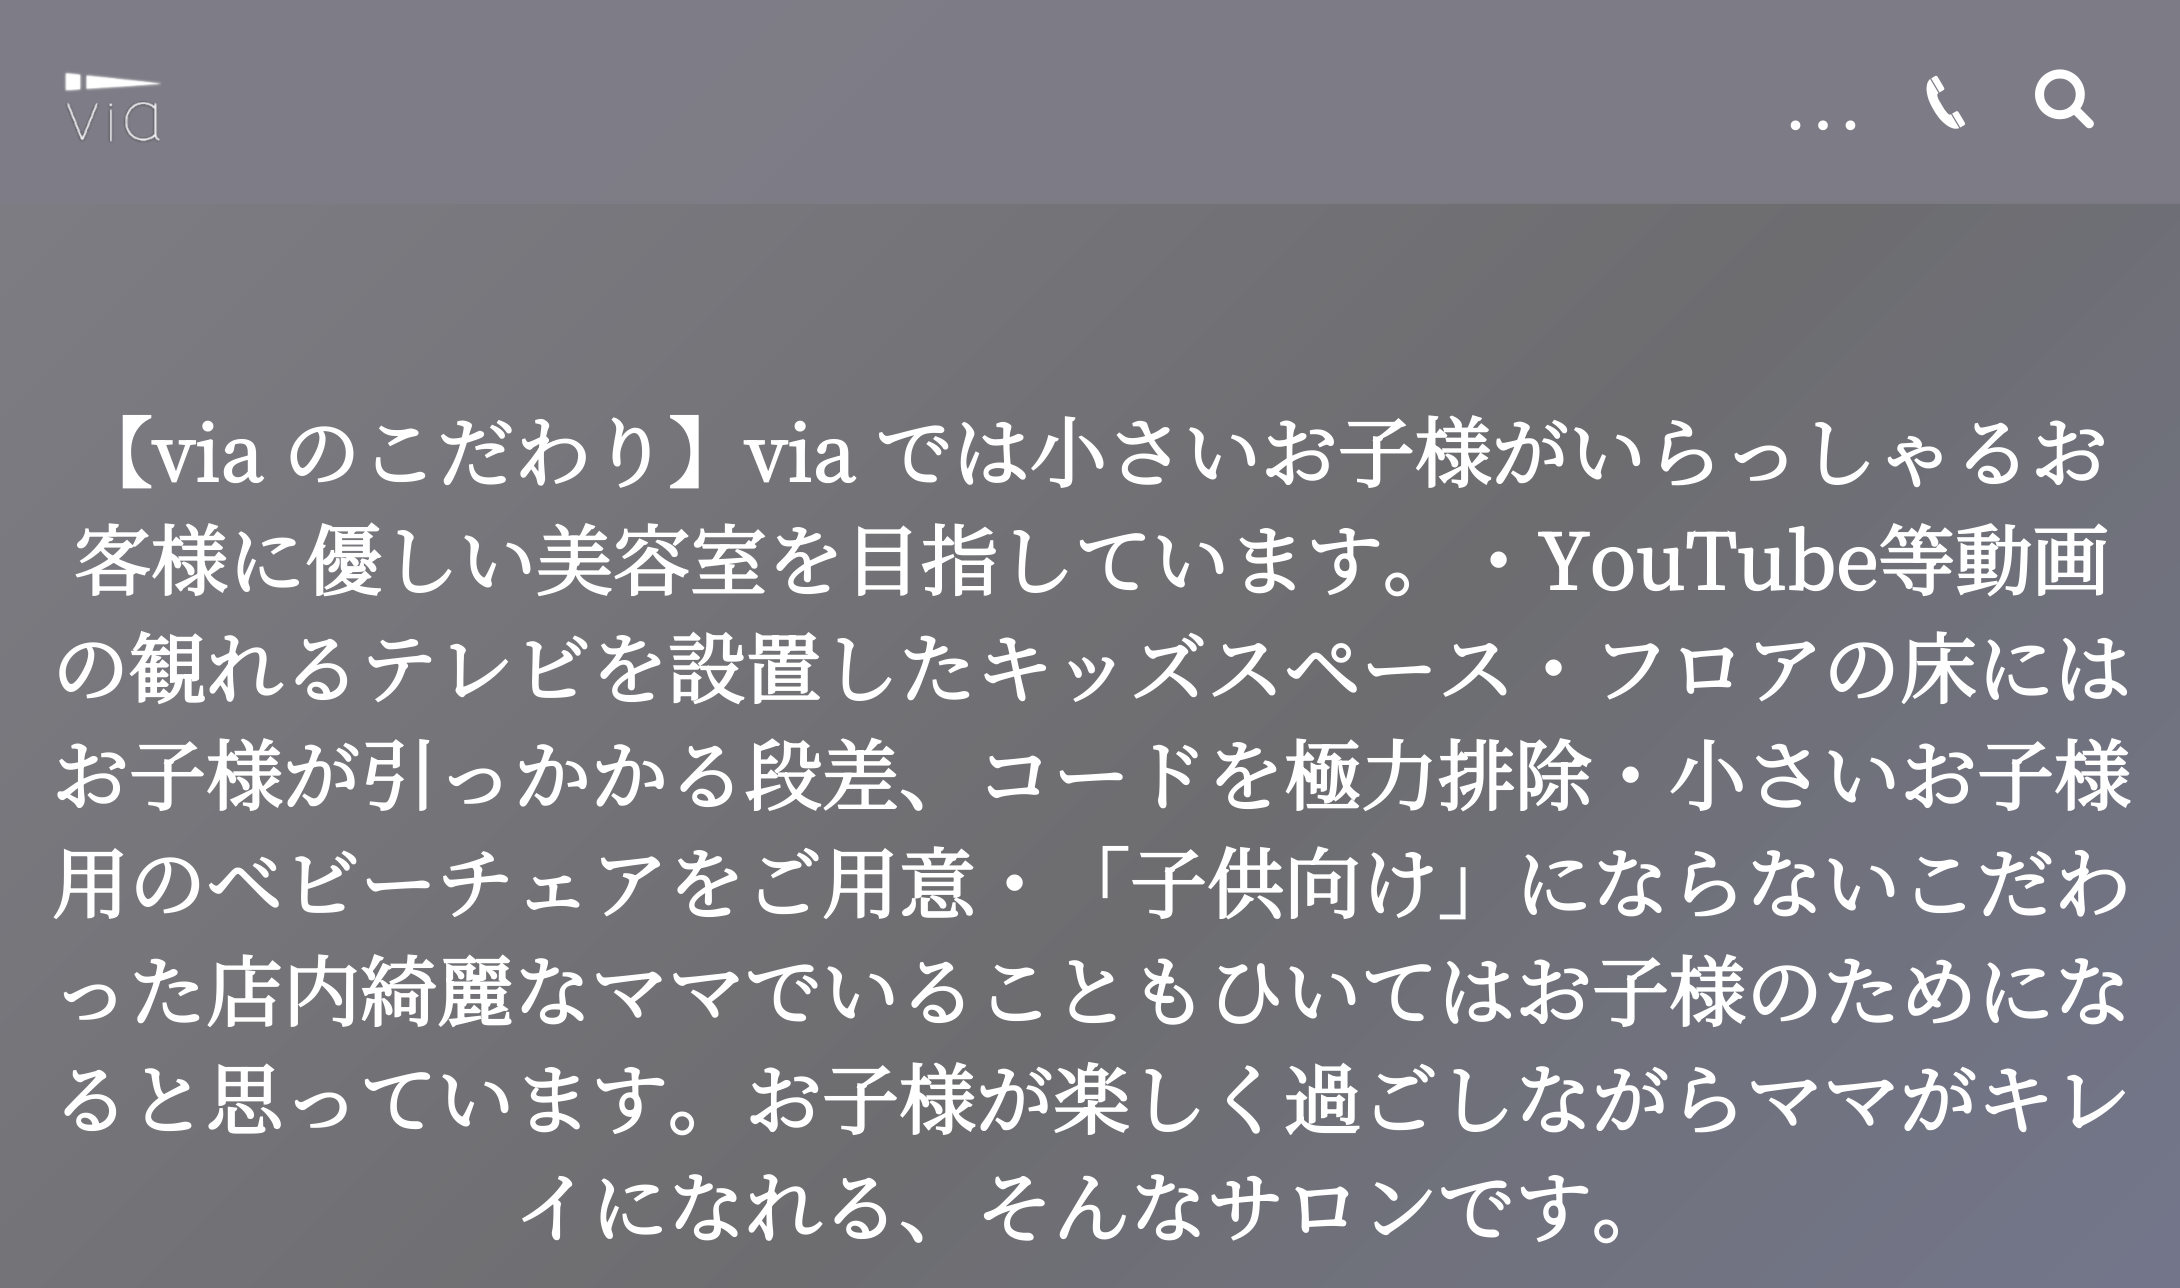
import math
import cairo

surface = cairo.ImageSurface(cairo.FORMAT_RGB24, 2180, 1288)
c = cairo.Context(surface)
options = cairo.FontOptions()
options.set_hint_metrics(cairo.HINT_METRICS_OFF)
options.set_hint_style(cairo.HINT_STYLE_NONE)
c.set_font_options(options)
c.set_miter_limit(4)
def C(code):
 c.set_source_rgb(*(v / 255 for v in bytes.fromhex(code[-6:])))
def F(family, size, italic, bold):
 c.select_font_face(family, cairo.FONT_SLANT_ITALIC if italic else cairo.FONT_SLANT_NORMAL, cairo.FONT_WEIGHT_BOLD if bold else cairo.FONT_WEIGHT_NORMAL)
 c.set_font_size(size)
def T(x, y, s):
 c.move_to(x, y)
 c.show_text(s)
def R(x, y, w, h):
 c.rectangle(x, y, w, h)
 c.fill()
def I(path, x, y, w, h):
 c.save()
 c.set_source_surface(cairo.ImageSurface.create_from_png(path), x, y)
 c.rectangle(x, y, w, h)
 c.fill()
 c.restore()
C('ffffff')
c.paint()
gradient = cairo.LinearGradient(59,-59,2122,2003)
gradient.add_color_stop_rgba(0,0.498,0.494,0.522,1)
gradient.add_color_stop_rgba(.5,0.427,0.427,0.439,1)
gradient.add_color_stop_rgba(1,0.463,0.482,0.596,1)
c.set_source(gradient)
R(0,201,2180,1087)
c.set_source_rgba(0.494,0.49,0.529,0.8)
R(0,201,2180,3)
gradient = cairo.LinearGradient(59,-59,2122,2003)
gradient.add_color_stop_rgba(0,0.494,0.49,0.529,1)
gradient.add_color_stop_rgba(.5,0.49,0.486,0.525,1)
gradient.add_color_stop_rgba(1,0.494,0.49,0.533,1)
c.set_source(gradient)
R(0,0,2180,201)
I('1.png',63,71,99,72)
F('Liberation Serif',82,0,0)
C('ffffff')
T(1782,129,'…')
I('2.png',1926,75,40,54)
I('3.png',2035,69,59,60)
F('Noto Serif JP',77,0,1)
T(75,482,'【via のこだわり】via では小さいお子様がいらっしゃるお')
T(73,590,'客様に優しい美容室を目指しています。・YouTube等動画')
T(51,698,'の観れるテレビを設置したキッズスペース・フロアの床には')
T(51,805,'お子様が引っかかる段差、コードを極力排除・小さいお子様')
T(51,913,'用のベビーチェアをご用意・「子供向け」にならないこだわ')
T(51,1021,'った店内綺麗なママでいることもひいてはお子様のためにな')
T(51,1129,'ると思っています。お子様が楽しく過ごしながらママがキレ')
T(513,1237,'イになれる、そんなサロンです。')
surface.write_to_png('o.png')
